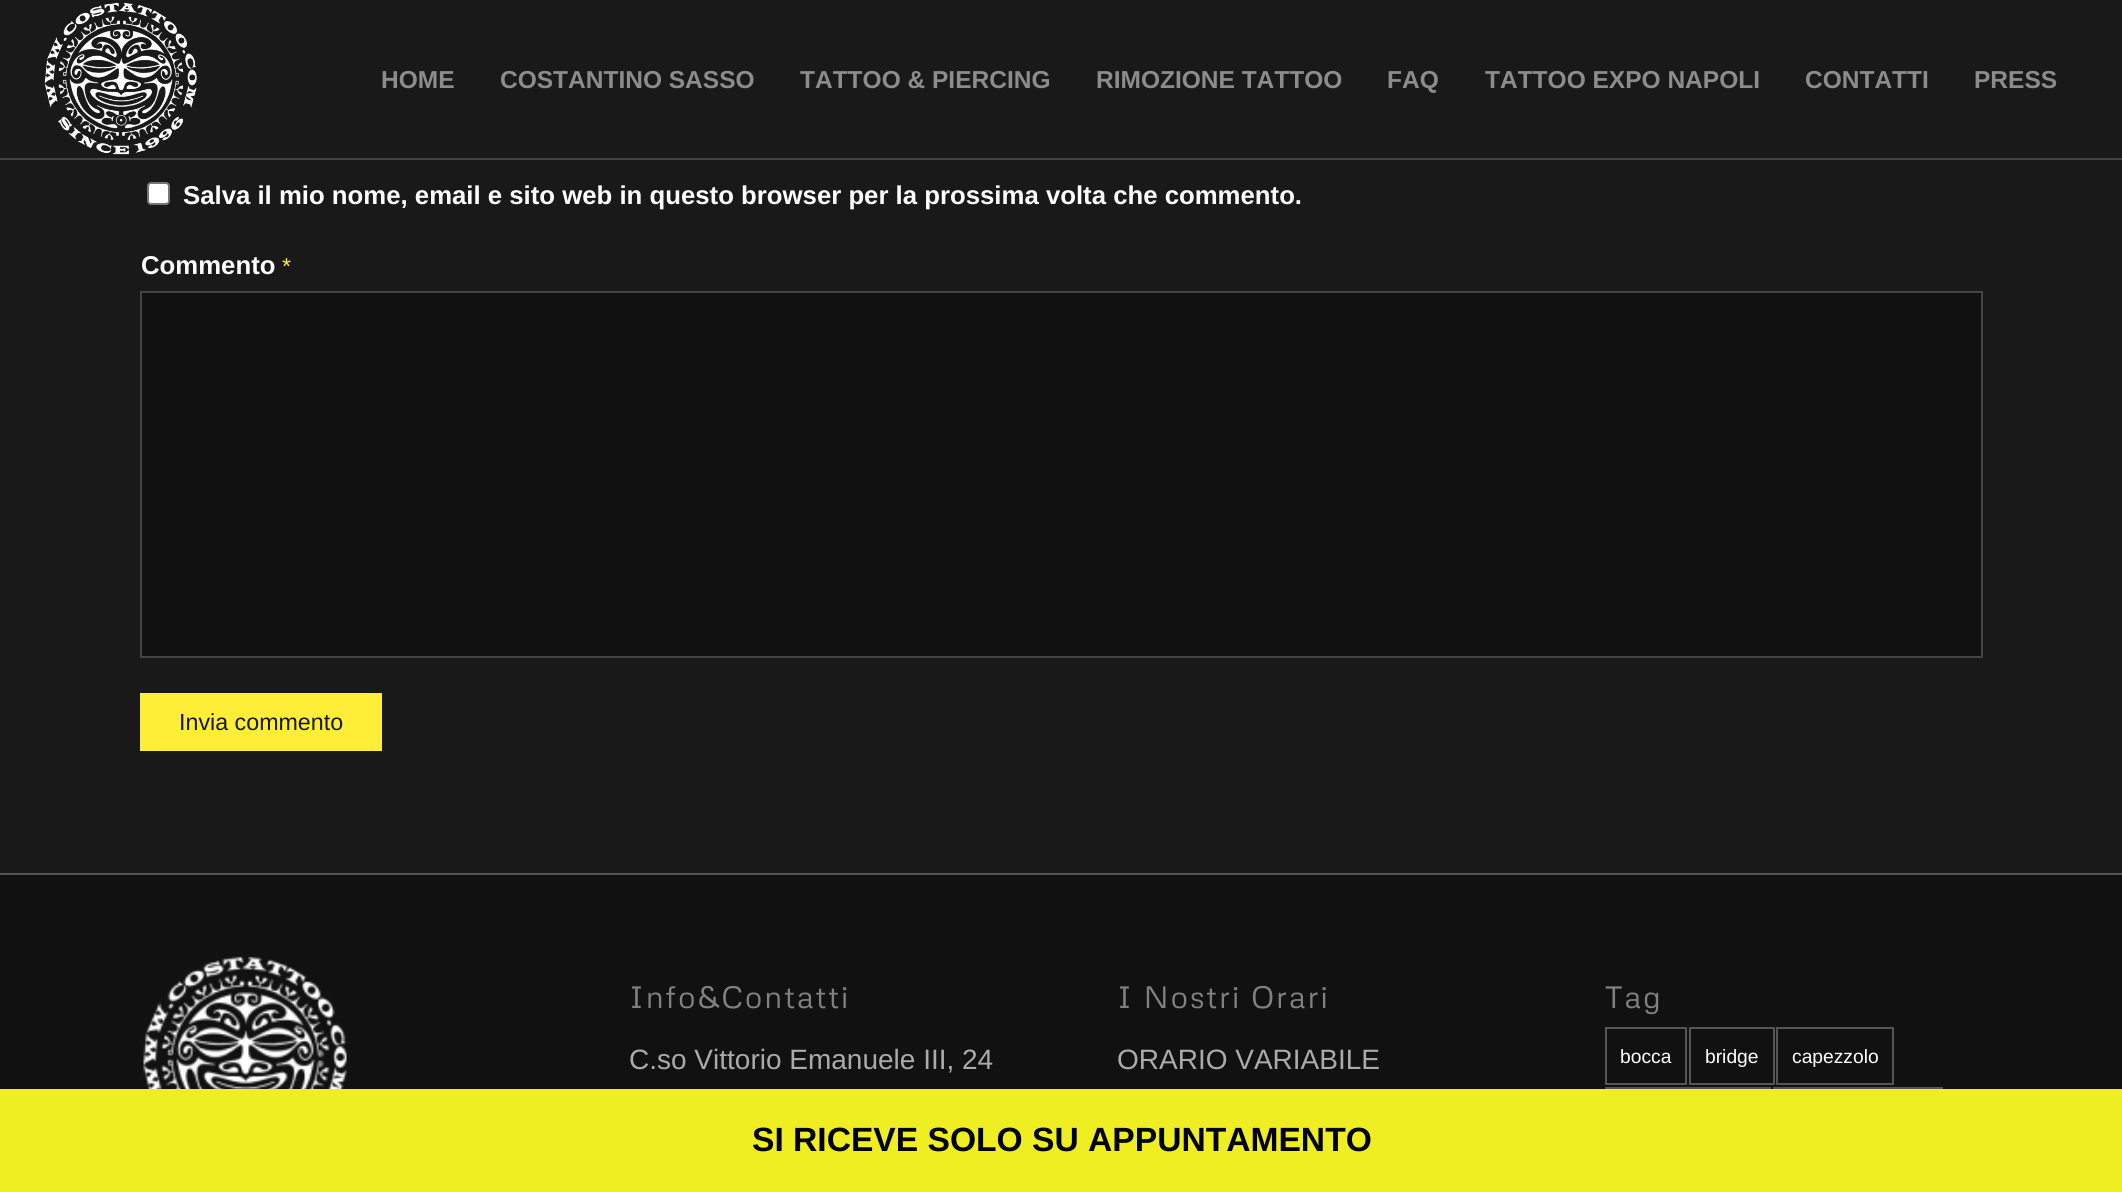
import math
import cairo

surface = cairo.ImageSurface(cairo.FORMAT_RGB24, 2122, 1192)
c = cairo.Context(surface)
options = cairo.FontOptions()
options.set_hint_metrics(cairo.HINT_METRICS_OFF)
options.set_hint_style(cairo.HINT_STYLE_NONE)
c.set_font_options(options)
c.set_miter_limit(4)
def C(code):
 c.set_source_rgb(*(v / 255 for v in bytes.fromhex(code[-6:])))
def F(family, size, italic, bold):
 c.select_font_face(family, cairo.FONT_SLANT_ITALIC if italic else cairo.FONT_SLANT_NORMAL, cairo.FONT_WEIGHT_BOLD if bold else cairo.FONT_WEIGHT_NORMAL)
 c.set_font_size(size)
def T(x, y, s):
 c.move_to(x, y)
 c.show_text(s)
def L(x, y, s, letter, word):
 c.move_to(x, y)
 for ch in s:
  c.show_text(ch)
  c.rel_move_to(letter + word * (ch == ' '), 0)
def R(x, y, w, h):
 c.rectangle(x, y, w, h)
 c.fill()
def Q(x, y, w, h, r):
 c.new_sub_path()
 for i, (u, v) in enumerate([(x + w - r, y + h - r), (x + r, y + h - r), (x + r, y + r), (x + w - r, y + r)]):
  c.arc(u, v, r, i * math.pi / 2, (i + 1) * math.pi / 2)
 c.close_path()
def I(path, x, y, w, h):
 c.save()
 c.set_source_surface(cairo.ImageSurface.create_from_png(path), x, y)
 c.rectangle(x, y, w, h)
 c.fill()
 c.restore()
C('191919')
c.paint()
C('444444')
R(0,158,2122,2)
I('1.png',44,2,153,153)
F('Liberation Sans',24.5,0,1)
C('8c8c8c')
T(381,88,'HOME')
T(500,88,'COSTANTINO SASSO')
T(800,88,'TATTOO & PIERCING')
T(1096,88,'RIMOZIONE TATTOO')
T(1387,88,'FAQ')
T(1485,88,'TATTOO EXPO NAPOLI')
T(1805,88,'CONTATTI')
T(1974,88,'PRESS')
C('ffffff')
Q(148,183,21,21,3)
c.fill_preserve()
C('767676')
c.stroke()
F('Liberation Sans',25.75,0,1)
C('ffffff')
T(183,204,'Salva il mio nome, email e sito web in questo browser per la prossima volta che commento.')
T(141,274,'Commento')
F('Liberation Sans',23,0,0)
C('ffee38')
T(282,274,'*')
C('111111')
c.rectangle(141,292,1841,365)
c.fill_preserve()
C('444444')
c.stroke()
C('ffee38')
R(140,693,242,58)
F('Liberation Sans',23.25,0,0)
C('191919')
T(179,730,'Invia commento')
C('111111')
R(0,875,2122,214)
C('555555')
R(0,873,2122,2)
I('2.png',143,956,204,133)
F('Metrophobic',30.75,0,0)
C('808080')
L(629,1008,'Info&Contatti',1.75,0)
F('Liberation Sans',28,0,0)
C('aaaaaa')
T(629,1069,'C.so Vittorio Emanuele III, 24')
F('Metrophobic',30.75,0,0)
C('808080')
L(1117,1008,'I Nostri Orari',1.75,0)
F('Liberation Sans',28,0,0)
C('aaaaaa')
T(1117,1069,'ORARIO VARIABILE')
F('Metrophobic',30.75,0,0)
C('808080')
L(1605,1008,'Tag',1.75,0)
c.rectangle(1606,1028,80,56)
C('555555')
c.stroke()
F('Liberation Sans',19.25,0,0)
C('ffffff')
T(1620,1063,'bocca')
c.rectangle(1690,1028,84,56)
C('555555')
c.stroke()
C('ffffff')
T(1705,1063,'bridge')
c.rectangle(1777,1028,116,56)
C('555555')
c.stroke()
C('ffffff')
T(1792,1063,'capezzolo')
c.rectangle(1606,1088,164,54)
C('555555')
c.stroke()
c.rectangle(1774,1088,168,54)
c.stroke()
C('eeee22')
R(0,1089,2122,103)
F('Liberation Sans',33.6,0,1)
C('000000')
T(752,1151,'SI RICEVE SOLO SU APPUNTAMENTO')
surface.write_to_png('o.png')
